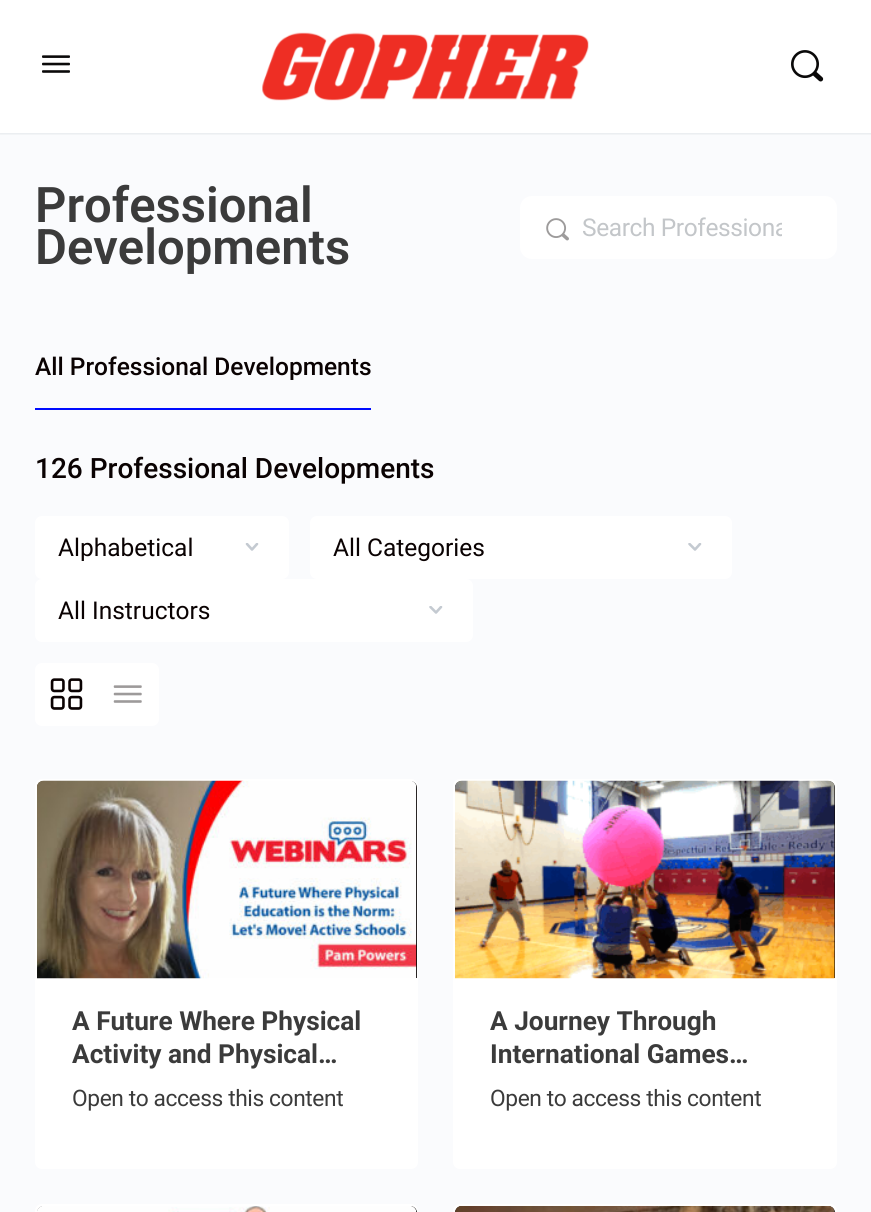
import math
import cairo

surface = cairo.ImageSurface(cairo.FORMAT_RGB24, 871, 1212)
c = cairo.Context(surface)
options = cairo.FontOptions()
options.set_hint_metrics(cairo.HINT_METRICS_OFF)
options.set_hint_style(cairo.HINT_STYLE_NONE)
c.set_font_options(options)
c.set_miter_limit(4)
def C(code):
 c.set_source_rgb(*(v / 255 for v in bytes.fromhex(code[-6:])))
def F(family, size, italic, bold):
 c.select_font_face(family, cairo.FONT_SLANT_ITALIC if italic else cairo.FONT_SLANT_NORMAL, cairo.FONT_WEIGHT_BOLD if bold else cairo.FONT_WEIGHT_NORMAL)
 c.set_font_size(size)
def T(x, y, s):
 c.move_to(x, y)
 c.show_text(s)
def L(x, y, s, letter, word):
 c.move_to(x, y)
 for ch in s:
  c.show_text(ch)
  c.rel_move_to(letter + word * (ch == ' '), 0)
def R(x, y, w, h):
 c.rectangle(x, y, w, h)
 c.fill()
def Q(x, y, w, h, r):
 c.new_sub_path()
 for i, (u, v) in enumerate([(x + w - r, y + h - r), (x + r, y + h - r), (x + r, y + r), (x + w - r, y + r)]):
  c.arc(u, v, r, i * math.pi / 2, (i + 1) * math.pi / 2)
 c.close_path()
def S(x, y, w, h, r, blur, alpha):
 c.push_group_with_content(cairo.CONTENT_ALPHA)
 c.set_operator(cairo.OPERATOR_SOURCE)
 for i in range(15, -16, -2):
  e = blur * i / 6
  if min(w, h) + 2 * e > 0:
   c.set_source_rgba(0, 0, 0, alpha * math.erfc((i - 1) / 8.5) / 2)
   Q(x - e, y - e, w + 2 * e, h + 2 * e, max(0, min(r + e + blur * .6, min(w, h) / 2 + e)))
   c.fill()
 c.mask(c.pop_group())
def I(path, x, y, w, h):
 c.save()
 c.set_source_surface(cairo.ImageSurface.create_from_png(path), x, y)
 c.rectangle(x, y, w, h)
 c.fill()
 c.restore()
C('fafbfd')
c.paint()
C('41476c')
S(0,0,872,133,0,1,.15)
c.set_source_rgba(0.545,0.553,0.616,0.05)
c.new_path()
c.move_to(0,133)
c.line_to(0,135)
c.line_to(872,135)
c.line_to(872,2)
c.line_to(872,133)
c.close_path()
c.fill()
C('ffffff')
R(0,0,871,133)
I('1.png',42,55,28,18)
I('2.png',262,32,327,69)
I('3.png',791,50,33,32)
F('Roboto SemiBold',49,0,0)
C('3b3b3b')
T(35,222,'Professional')
T(35,264,'Developments')
C('ffffff')
Q(520,196,317,63,12)
c.fill()
I('4.png',546,218,23,23)
c.save()
c.rectangle(583,214,199,28)
c.clip()
F('Roboto',24.5,0,0)
C('c3c6c9')
L(582,236,'Search Professiona',-.4,0)
c.restore()
C('000cff')
R(35,408,336,2)
F('Roboto Medium',24.5,0,0)
C('0a0202')
T(35,375,'All Professional Developments')
F('Roboto Medium',28,0,0)
T(35,478,'126 Professional Developments')
C('ffffff')
Q(35,516,254,63,7)
c.fill()
c.save()
c.rectangle(245,543,14,8)
c.clip()
c.new_path()
c.move_to(257,544)
c.line_to(252,549.5)
c.line_to(247,544)
C('c4cad1')
c.set_line_width(2.6)
c.set_line_cap(cairo.LINE_CAP_ROUND)
c.set_line_join(cairo.LINE_JOIN_ROUND)
c.stroke()
c.restore()
F('Roboto',24.5,0,0)
C('0a0202')
T(58,556,'Alphabetical')
C('ffffff')
Q(310,516,422,63,7)
c.fill()
c.save()
c.rectangle(688,543,14,8)
c.clip()
c.new_path()
c.move_to(700,544)
c.line_to(695,549.5)
c.line_to(689.5,544)
C('c4cad1')
c.set_line_width(2.6)
c.set_line_cap(cairo.LINE_CAP_ROUND)
c.set_line_join(cairo.LINE_JOIN_ROUND)
c.stroke()
c.restore()
C('0a0202')
T(333,556,'All Categories')
C('ffffff')
Q(35,579,438,63,7)
c.fill()
c.save()
c.rectangle(429,606,14,8)
c.clip()
c.new_path()
c.move_to(441,607)
c.line_to(436,612.5)
c.line_to(430.5,607)
C('c4cad1')
c.set_line_width(2.6)
c.set_line_cap(cairo.LINE_CAP_ROUND)
c.set_line_join(cairo.LINE_JOIN_ROUND)
c.stroke()
c.restore()
C('0a0202')
T(58,619,'All Instructors')
C('ffffff')
Q(35,663,124,63,7)
c.fill()
I('5.png',50,678,33,32)
I('6.png',113,685,29,18)
Q(35,779,383,390,7)
c.fill()
C('0a0606')
c.new_path()
c.move_to(44,781)
c.line_to(410,781)
c.curve_to(414,781,417,784,417,788)
c.line_to(417,978)
c.line_to(37,978)
c.line_to(37,788)
c.curve_to(37,784,40,781,44,781)
c.close_path()
c.fill()
I('7.png',37,780,380,199)
F('Roboto',26.25,0,1)
C('3b3b3b')
T(72,1030,'A Future Where Physical')
T(72,1063,'Activity and Physical…')
F('Roboto',22.75,0,0)
L(72,1106,'Open to access this content',-.4,0)
C('ffffff')
Q(453,779,384,390,7)
c.fill()
C('0a0606')
c.new_path()
c.move_to(462,781)
c.line_to(828,781)
c.curve_to(832,781,835,784,835,788)
c.line_to(835,978)
c.line_to(455,978)
c.line_to(455,788)
c.curve_to(455,784,458,781,462,781)
c.close_path()
c.fill()
I('8.png',455,780,380,199)
F('Roboto',26.25,0,1)
C('3b3b3b')
T(490,1030,'A Journey Through')
T(490,1063,'International Games…')
F('Roboto',22.75,0,0)
L(490,1106,'Open to access this content',-.4,0)
C('ffffff')
Q(35,1204,383,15,7)
c.fill()
C('0a0606')
c.new_path()
c.move_to(44,1206)
c.line_to(410,1206)
c.curve_to(414,1206,417,1209,417,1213)
c.line_to(417,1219)
c.line_to(37,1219)
c.line_to(37,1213)
c.curve_to(37,1209,40,1206,44,1206)
c.close_path()
c.fill()
I('9.png',37,1206,380,6)
C('ffffff')
Q(453,1204,384,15,7)
c.fill()
C('0a0606')
c.new_path()
c.move_to(462,1206)
c.line_to(828,1206)
c.curve_to(832,1206,835,1209,835,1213)
c.line_to(835,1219)
c.line_to(455,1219)
c.line_to(455,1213)
c.curve_to(455,1209,458,1206,462,1206)
c.close_path()
c.fill()
I('10.png',455,1206,380,6)
surface.write_to_png('o.png')
